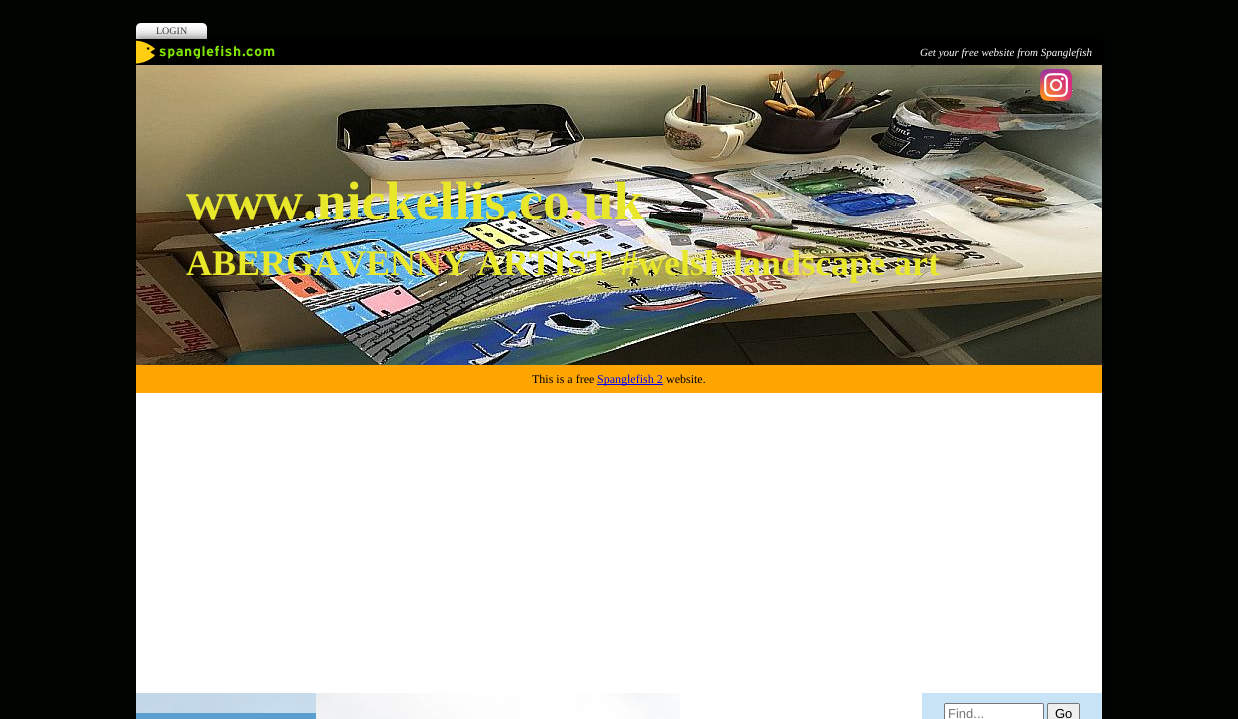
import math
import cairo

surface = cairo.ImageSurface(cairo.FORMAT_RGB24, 1238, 719)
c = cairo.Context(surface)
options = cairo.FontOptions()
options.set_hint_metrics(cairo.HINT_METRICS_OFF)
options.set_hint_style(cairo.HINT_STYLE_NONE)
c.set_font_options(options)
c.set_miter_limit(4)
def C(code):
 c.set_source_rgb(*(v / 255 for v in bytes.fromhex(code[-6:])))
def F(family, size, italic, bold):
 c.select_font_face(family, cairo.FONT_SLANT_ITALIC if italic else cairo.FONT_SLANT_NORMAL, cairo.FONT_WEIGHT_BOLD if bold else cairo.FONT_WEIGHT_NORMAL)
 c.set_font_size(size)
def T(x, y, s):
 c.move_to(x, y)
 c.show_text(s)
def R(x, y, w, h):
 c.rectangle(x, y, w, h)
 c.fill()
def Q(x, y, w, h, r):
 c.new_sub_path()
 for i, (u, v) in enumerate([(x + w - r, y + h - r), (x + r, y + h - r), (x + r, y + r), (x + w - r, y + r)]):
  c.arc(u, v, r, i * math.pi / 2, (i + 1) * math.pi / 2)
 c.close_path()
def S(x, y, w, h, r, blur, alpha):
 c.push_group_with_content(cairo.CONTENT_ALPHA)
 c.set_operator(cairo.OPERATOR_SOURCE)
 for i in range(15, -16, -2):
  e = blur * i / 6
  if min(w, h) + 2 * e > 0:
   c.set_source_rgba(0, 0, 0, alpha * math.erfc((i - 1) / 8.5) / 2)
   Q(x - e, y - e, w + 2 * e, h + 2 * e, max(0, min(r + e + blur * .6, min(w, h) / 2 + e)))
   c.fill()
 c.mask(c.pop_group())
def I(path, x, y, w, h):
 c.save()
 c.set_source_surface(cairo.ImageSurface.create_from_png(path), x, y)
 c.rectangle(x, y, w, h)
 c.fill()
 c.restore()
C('000501')
c.paint()
C('ffffff')
c.new_path()
c.move_to(141,23)
c.line_to(202,23)
c.curve_to(205,23,207,25,207,28)
c.line_to(207,39)
c.line_to(136,39)
c.line_to(136,28)
c.curve_to(136,25,138,23,141,23)
c.close_path()
c.fill()
F('Liberation Serif',10,0,0)
C('444444')
T(156,34,'LOGIN')
C('000000')
S(139,42,966,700,0,7.5,1)
C('ffffff')
R(136,393,966,326)
C('000000')
R(136,39,966,26)
I('1.png',136,40,139,25)
F('Liberation Serif',11,1,0)
C('ffffff')
T(920,56,'Get your free website from Spanglefish')
I('3.png',136,65,966,300)
I('2.png',1040,69,32,32)
F('Liberation Serif',54,0,1)
C('e9e729')
T(186,219,'www.nickellis.co.uk')
F('Liberation Serif',36,0,1)
T(186,275,'ABERGAVENNY ARTIST #welsh landscape art')
C('ffa500')
R(136,365,966,28)
F('Liberation Serif',12,0,0)
C('000000')
T(532,383,'This is a free')
C('0000ee')
R(597,384,66,1)
T(597,383,'Spanglefish 2')
C('000000')
T(666,383,'website.')
I('4.png',136,693,544,26)
c.set_source_rgba(0.639,0.796,0.914,0.5)
R(136,693,180,20)
C('5a9fcf')
R(136,713,180,6)
C('c8e3f6')
R(922,693,180,26)
C('ffffff')
Q(944.5,703.5,99,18,1.5)
c.fill_preserve()
C('767676')
c.set_line_width(1)
c.stroke()
F('Liberation Sans',13,0,0)
C('757575')
T(948,718,'Find...')
C('efefef')
Q(1047.5,703.5,32,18,1.5)
c.fill_preserve()
C('767676')
c.stroke()
C('000000')
T(1055,718,'Go')
surface.write_to_png('o.png')
